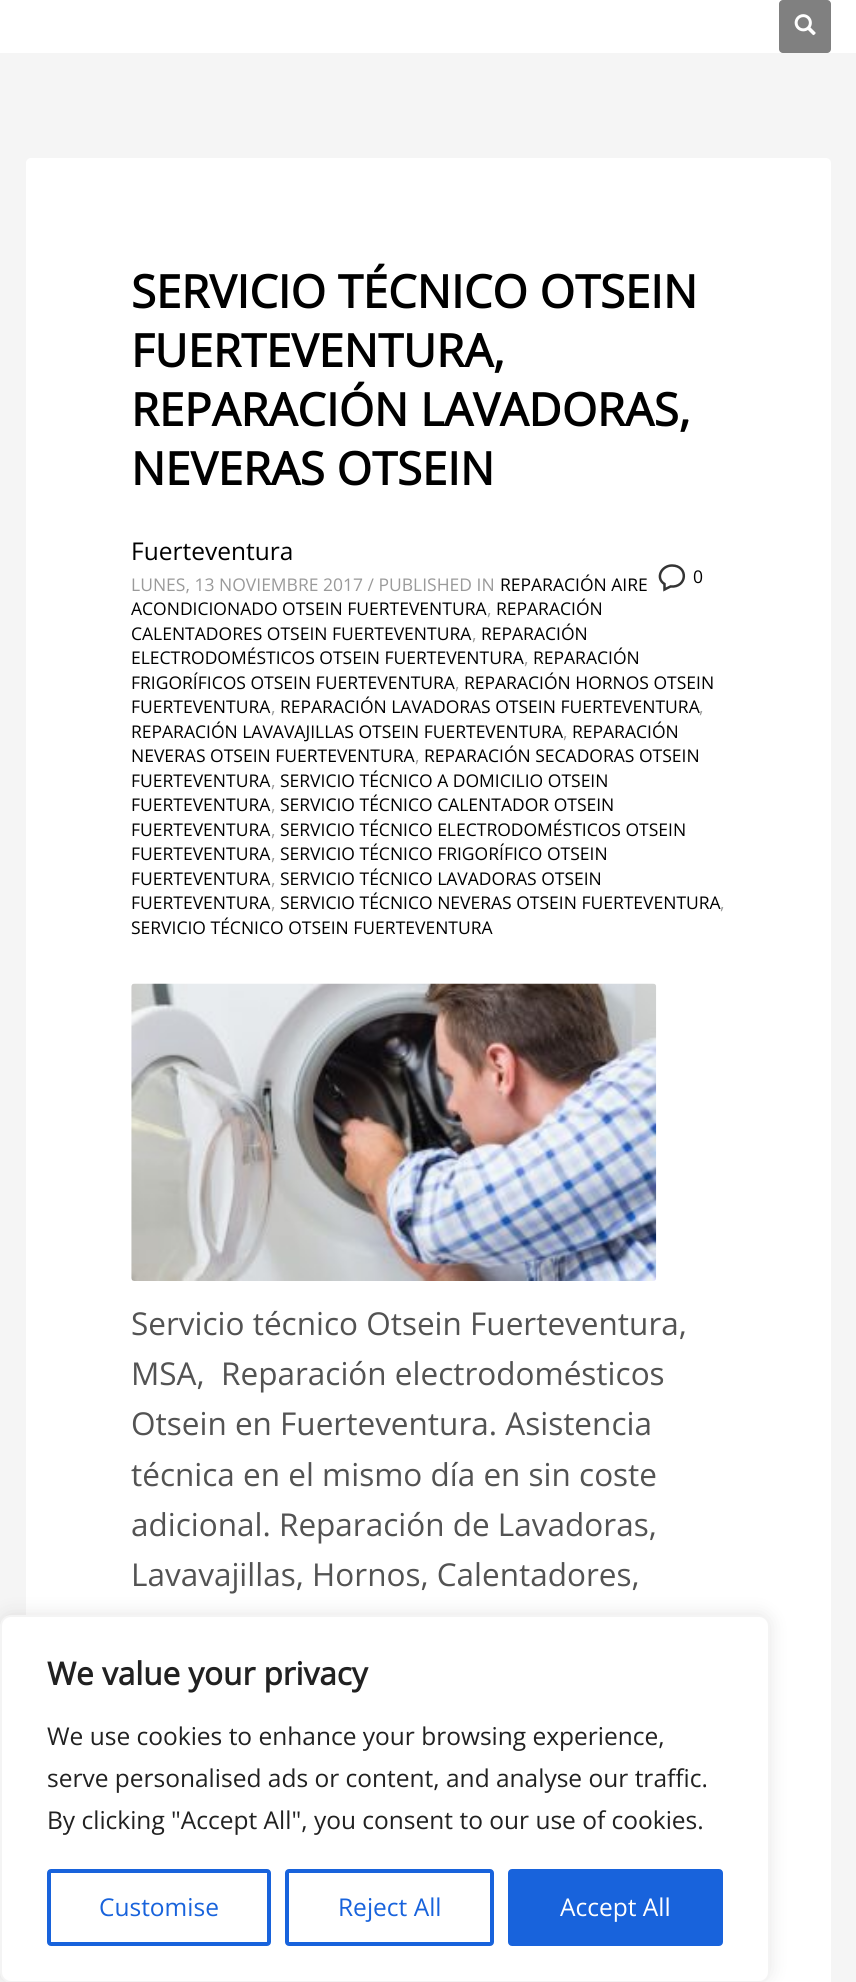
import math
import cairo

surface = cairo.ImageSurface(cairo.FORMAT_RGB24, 856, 1982)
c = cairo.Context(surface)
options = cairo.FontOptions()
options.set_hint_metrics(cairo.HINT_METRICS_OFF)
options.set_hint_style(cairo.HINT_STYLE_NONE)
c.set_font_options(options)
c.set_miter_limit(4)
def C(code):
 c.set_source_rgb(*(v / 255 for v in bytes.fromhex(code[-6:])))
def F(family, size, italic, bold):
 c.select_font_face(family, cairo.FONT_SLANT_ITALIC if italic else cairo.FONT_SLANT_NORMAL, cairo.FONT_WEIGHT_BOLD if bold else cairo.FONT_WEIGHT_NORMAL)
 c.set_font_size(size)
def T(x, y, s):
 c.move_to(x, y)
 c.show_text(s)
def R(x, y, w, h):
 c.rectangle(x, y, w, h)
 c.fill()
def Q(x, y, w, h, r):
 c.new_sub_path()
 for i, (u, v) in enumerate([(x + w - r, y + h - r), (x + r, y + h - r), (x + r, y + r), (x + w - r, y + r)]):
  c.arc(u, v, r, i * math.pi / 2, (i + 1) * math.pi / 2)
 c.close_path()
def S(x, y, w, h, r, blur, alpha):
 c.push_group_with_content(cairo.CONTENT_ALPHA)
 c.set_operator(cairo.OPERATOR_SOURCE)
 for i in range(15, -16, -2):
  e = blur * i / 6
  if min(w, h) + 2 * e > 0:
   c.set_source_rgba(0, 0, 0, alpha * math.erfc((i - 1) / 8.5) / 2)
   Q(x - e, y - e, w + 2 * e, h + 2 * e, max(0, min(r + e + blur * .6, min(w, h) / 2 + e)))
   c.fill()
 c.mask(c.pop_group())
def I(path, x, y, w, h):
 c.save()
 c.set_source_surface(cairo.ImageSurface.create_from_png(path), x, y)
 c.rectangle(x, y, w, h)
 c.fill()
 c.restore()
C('f5f5f5')
c.paint()
C('ffffff')
R(0,0,856,53)
C('808080')
Q(779,0,52,53,4)
c.fill()
I('1.png',794,14,22,22)
C('ffffff')
Q(26,158,805,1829,5)
c.fill()
F('Open Sans',45.5,0,1)
C('000000')
T(131,308,'SERVICIO TÉCNICO OTSEIN')
T(131,367,'FUERTEVENTURA,')
T(131,426,'REPARACIÓN LAVADORAS,')
T(131,485,'NEVERAS OTSEIN')
F('Open Sans',24.5,0,0)
T(131,560,'Fuerteventura')
F('Open Sans',17.5,0,0)
C('9a9a9a')
T(131,591,'LUNES, 13 NOVIEMBRE 2017 / PUBLISHED IN')
C('000000')
T(500,591,'REPARACIÓN AIRE')
T(131,615,'ACONDICIONADO OTSEIN FUERTEVENTURA')
C('9a9a9a')
T(487,615,',')
C('000000')
T(496,615,'REPARACIÓN')
T(131,640,'CALENTADORES OTSEIN FUERTEVENTURA')
C('9a9a9a')
T(472,640,',')
C('000000')
T(481,640,'REPARACIÓN')
T(131,664,'ELECTRODOMÉSTICOS OTSEIN FUERTEVENTURA')
C('9a9a9a')
T(524,664,',')
C('000000')
T(533,664,'REPARACIÓN')
T(131,689,'FRIGORÍFICOS OTSEIN FUERTEVENTURA')
C('9a9a9a')
T(455,689,',')
C('000000')
T(464,689,'REPARACIÓN HORNOS OTSEIN')
T(131,713,'FUERTEVENTURA')
C('9a9a9a')
T(271,713,',')
C('000000')
T(280,713,'REPARACIÓN LAVADORAS OTSEIN FUERTEVENTURA')
C('9a9a9a')
T(699,713,',')
C('000000')
T(131,738,'REPARACIÓN LAVAVAJILLAS OTSEIN FUERTEVENTURA')
C('9a9a9a')
T(563,738,',')
C('000000')
T(572,738,'REPARACIÓN')
T(131,762,'NEVERAS OTSEIN FUERTEVENTURA')
C('9a9a9a')
T(415,762,',')
C('000000')
T(424,762,'REPARACIÓN SECADORAS OTSEIN')
T(131,787,'FUERTEVENTURA')
C('9a9a9a')
T(271,787,',')
C('000000')
T(280,787,'SERVICIO TÉCNICO A DOMICILIO OTSEIN')
T(131,811,'FUERTEVENTURA')
C('9a9a9a')
T(271,811,',')
C('000000')
T(280,811,'SERVICIO TÉCNICO CALENTADOR OTSEIN')
T(131,836,'FUERTEVENTURA')
C('9a9a9a')
T(271,836,',')
C('000000')
T(280,836,'SERVICIO TÉCNICO ELECTRODOMÉSTICOS OTSEIN')
T(131,860,'FUERTEVENTURA')
C('9a9a9a')
T(271,860,',')
C('000000')
T(280,860,'SERVICIO TÉCNICO FRIGORÍFICO OTSEIN')
T(131,885,'FUERTEVENTURA')
C('9a9a9a')
T(271,885,',')
C('000000')
T(280,885,'SERVICIO TÉCNICO LAVADORAS OTSEIN')
T(131,909,'FUERTEVENTURA')
C('9a9a9a')
T(271,909,',')
C('000000')
T(280,909,'SERVICIO TÉCNICO NEVERAS OTSEIN FUERTEVENTURA')
C('9a9a9a')
T(720,909,',')
C('000000')
T(131,934,'SERVICIO TÉCNICO OTSEIN FUERTEVENTURA')
c.new_path()
c.move_to(672,565.5)
c.curve_to(661.5,565.5,655,578,664.5,584)
c.line_to(664.5,589.5)
c.line_to(670.5,586.5)
c.curve_to(687.5,588,688.5,565.5,672,565.5)
c.close_path()
C('343434')
c.set_line_width(2.5)
c.stroke()
C('000000')
T(693,583,'0')
I('2.png',131,983,526,298)
F('Open Sans',31.5,0,0)
C('535353')
T(131,1335,'Servicio técnico Otsein Fuerteventura,')
T(131,1385,'MSA,  Reparación electrodomésticos')
T(131,1435,'Otsein en Fuerteventura. Asistencia')
T(131,1486,'técnica en el mismo día en sin coste')
T(131,1536,'adicional. Reparación de Lavadoras,')
T(131,1586,'Lavavajillas, Hornos, Calentadores,')
C('acabab')
S(0,1614,770,367,11,9,.3)
C('ffffff')
Q(1,1616,768,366,10)
c.fill_preserve()
C('f4f4f4')
c.set_line_width(2)
c.stroke()
F('Open Sans',31.5,0,1)
C('212121')
T(47,1685,'We value your privacy')
F('Open Sans',24.5,0,0)
T(47,1745,'We use cookies to enhance your browsing experience,')
T(47,1787,'serve personalised ads or content, and analyse our traffic.')
T(47,1829,'By clicking "Accept All", you consent to our use of cookies.')
Q(49,1871,220,73,2)
C('1863dc')
c.set_line_width(4)
c.stroke()
T(99,1916,'Customise')
Q(287,1871,205,73,2)
c.stroke()
T(338,1916,'Reject All')
Q(510,1871,211,73,2)
c.fill_preserve()
c.stroke()
C('ffffff')
T(560,1916,'Accept All')
surface.write_to_png('o.png')
